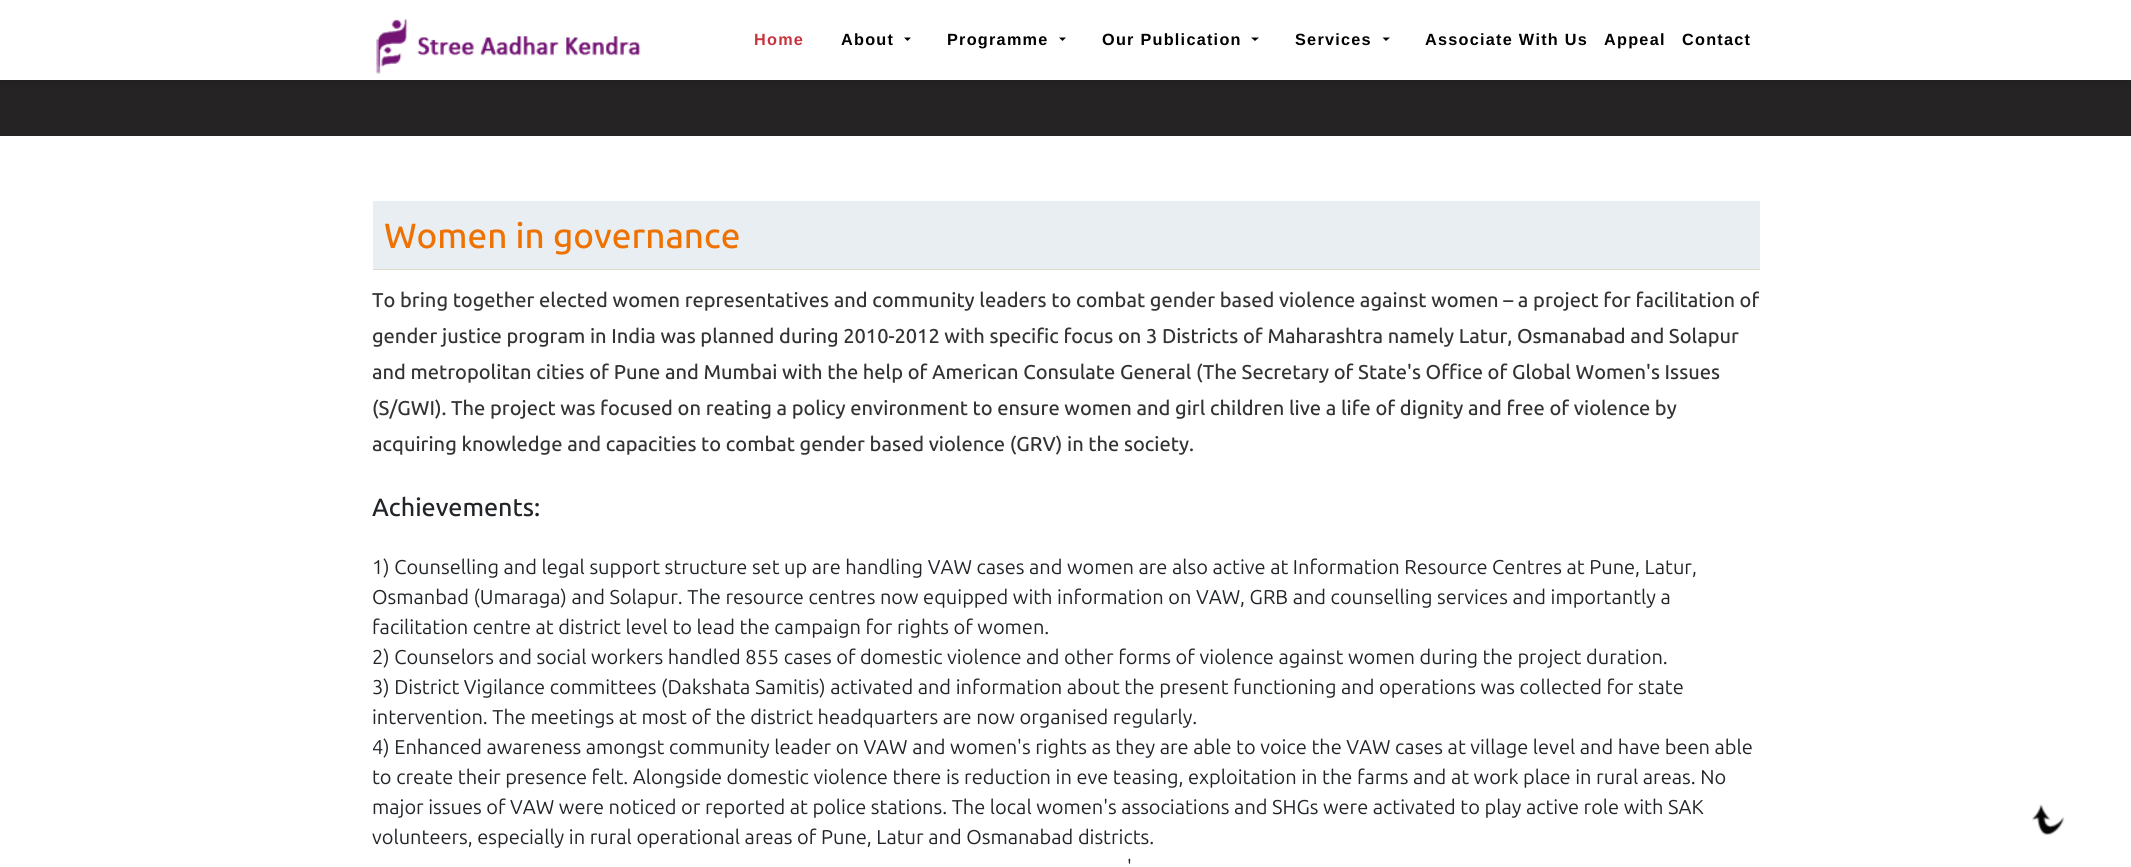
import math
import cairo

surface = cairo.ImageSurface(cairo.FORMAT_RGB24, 2131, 867)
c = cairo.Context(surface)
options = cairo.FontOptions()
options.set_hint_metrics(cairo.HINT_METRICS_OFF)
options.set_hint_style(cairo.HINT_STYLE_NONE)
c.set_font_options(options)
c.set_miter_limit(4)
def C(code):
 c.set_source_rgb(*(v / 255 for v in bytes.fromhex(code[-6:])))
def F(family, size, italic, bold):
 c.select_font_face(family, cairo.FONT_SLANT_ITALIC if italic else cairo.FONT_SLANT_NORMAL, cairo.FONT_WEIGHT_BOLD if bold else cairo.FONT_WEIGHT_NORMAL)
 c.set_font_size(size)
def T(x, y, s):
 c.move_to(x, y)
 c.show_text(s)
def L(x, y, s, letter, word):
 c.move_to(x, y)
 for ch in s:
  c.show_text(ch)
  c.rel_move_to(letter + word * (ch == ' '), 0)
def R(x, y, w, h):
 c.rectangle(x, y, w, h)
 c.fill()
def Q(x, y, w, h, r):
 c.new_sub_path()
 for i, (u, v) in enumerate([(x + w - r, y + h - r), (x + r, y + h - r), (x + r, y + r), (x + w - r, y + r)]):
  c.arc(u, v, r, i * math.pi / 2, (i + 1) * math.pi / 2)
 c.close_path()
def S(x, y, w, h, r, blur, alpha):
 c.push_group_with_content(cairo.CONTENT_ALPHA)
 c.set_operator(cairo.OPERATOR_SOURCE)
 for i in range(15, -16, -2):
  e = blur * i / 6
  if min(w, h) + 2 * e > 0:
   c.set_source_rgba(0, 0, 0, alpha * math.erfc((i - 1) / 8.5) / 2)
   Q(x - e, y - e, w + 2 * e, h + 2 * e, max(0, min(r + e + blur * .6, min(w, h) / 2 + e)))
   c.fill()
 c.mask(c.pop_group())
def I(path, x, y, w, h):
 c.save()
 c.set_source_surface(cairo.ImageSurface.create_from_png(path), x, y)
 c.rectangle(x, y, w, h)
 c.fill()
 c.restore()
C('ffffff')
c.paint()
C('252323')
R(0,80,2131,56)
C('000000')
S(0,0,2131,80,0,6,.2)
C('ffffff')
R(0,0,2131,80)
I('1.png',376,18,265,56)
F('Liberation Sans',16.25,0,1)
C('c9333f')
L(754,45,'Home',1.25,0)
C('000000')
L(841,45,'About',1.25,0)
c.new_path()
c.move_to(904,37.5)
c.line_to(911,37.5)
c.line_to(907.5,41)
c.close_path()
c.fill()
L(947,45,'Programme',1.25,0)
c.new_path()
c.move_to(1059,37.5)
c.line_to(1066,37.5)
c.line_to(1062.5,41)
c.close_path()
c.fill()
L(1102,45,'Our Publication',1.25,0)
c.new_path()
c.move_to(1251,37.5)
c.line_to(1259,37.5)
c.line_to(1255,41)
c.close_path()
c.fill()
L(1295,45,'Services',1.25,0)
c.new_path()
c.move_to(1382.5,37.5)
c.line_to(1390,37.5)
c.line_to(1386,41)
c.close_path()
c.fill()
L(1425,45,'Associate With Us',1.25,0)
L(1604,45,'Appeal',1.25,0)
L(1682,45,'Contact',1.25,0)
C('e9eef2')
R(373,201,1387,68)
C('dedacb')
R(373,269,1387,1)
F('Ubuntu Medium',35,0,0)
C('ee7202')
T(384,248,'Women in governance')
F('Ubuntu Medium',20,0,0)
C('333333')
T(372,307,'To bring together elected women representatives and community leaders to combat gender based violence against women – a project for facilitation of')
T(372,343,'gender justice program in India was planned during 2010-2012 with specific focus on 3 Districts of Maharashtra namely Latur, Osmanabad and Solapur')
T(372,379,'and metropolitan cities of Pune and Mumbai with the help of American Consulate General (The Secretary of State\'s Office of Global Women\'s Issues')
T(372,415,'(S/GWI). The project was focused on reating a policy environment to ensure women and girl children live a life of dignity and free of violence by')
T(372,451,'acquiring knowledge and capacities to combat gender based violence (GRV) in the society.')
F('Ubuntu Medium',25,0,0)
C('212529')
T(372,516,'Achievements:')
F('Ubuntu',20,0,0)
T(372,574,'1) Counselling and legal support structure set up are handling VAW cases and women are also active at Information Resource Centres at Pune, Latur,')
T(372,604,'Osmanbad (Umaraga) and Solapur. The resource centres now equipped with information on VAW, GRB and counselling services and importantly a')
T(372,634,'facilitation centre at district level to lead the campaign for rights of women.')
T(372,664,'2) Counselors and social workers handled 855 cases of domestic violence and other forms of violence against women during the project duration.')
T(372,694,'3) District Vigilance committees (Dakshata Samitis) activated and information about the present functioning and operations was collected for state')
T(372,724,'intervention. The meetings at most of the district headquarters are now organised regularly.')
T(372,754,'4) Enhanced awareness amongst community leader on VAW and women\'s rights as they are able to voice the VAW cases at village level and have been able')
T(372,784,'to create their presence felt. Alongside domestic violence there is reduction in eve teasing, exploitation in the farms and at work place in rural areas. No')
T(372,814,'major issues of VAW were noticed or reported at police stations. The local women\'s associations and SHGs were activated to play active role with SAK')
T(372,844,'volunteers, especially in rural operational areas of Pune, Latur and Osmanabad districts.')
T(1127,874,'\'')
I('2.png',2032,804,33,32)
surface.write_to_png('o.png')
